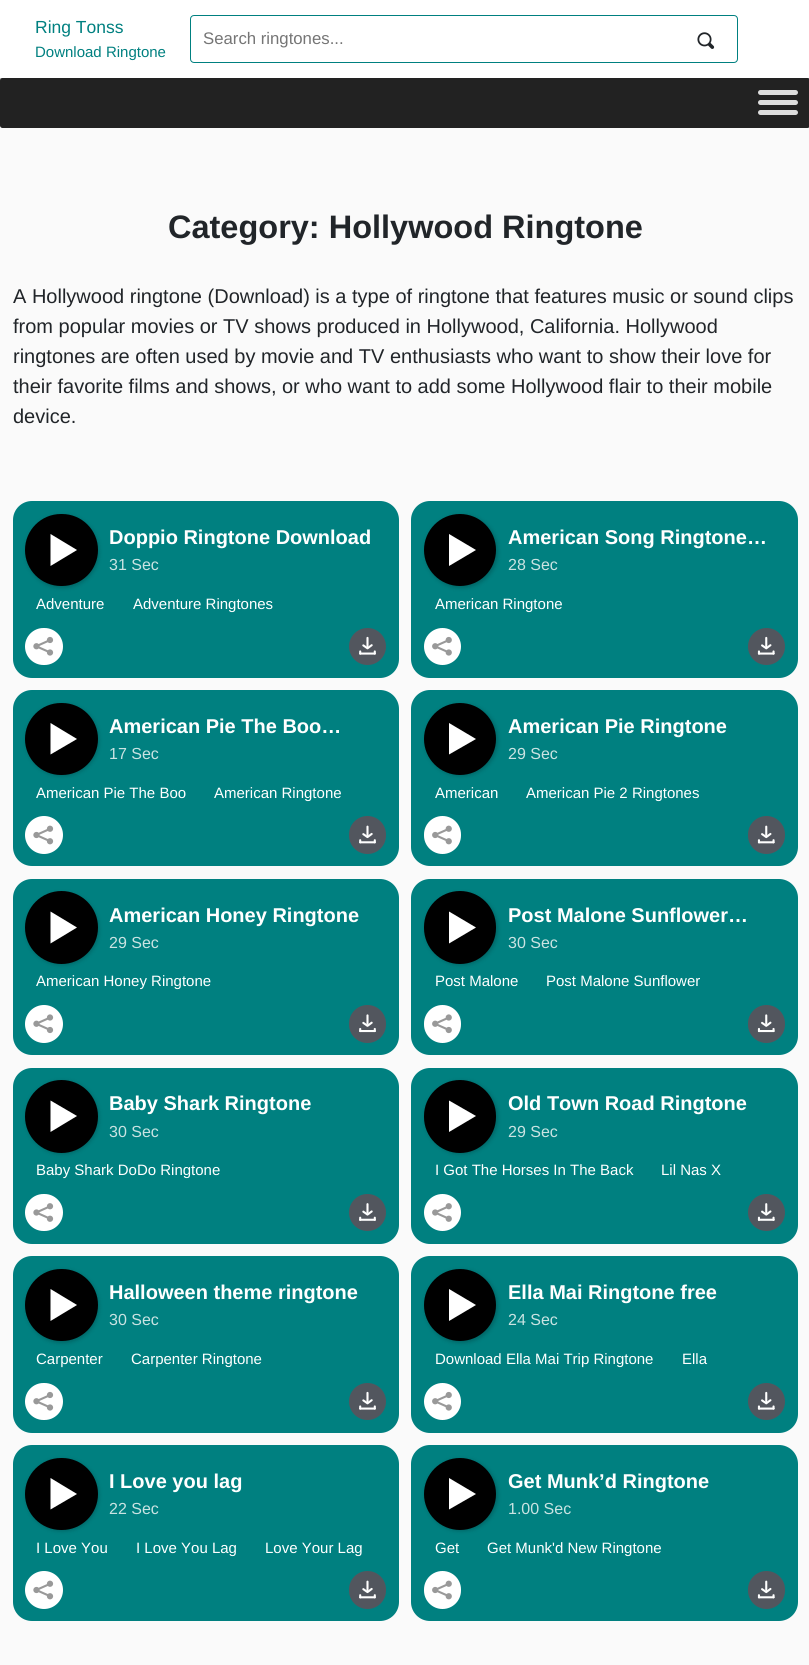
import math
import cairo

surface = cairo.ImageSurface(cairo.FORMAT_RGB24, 809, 1665)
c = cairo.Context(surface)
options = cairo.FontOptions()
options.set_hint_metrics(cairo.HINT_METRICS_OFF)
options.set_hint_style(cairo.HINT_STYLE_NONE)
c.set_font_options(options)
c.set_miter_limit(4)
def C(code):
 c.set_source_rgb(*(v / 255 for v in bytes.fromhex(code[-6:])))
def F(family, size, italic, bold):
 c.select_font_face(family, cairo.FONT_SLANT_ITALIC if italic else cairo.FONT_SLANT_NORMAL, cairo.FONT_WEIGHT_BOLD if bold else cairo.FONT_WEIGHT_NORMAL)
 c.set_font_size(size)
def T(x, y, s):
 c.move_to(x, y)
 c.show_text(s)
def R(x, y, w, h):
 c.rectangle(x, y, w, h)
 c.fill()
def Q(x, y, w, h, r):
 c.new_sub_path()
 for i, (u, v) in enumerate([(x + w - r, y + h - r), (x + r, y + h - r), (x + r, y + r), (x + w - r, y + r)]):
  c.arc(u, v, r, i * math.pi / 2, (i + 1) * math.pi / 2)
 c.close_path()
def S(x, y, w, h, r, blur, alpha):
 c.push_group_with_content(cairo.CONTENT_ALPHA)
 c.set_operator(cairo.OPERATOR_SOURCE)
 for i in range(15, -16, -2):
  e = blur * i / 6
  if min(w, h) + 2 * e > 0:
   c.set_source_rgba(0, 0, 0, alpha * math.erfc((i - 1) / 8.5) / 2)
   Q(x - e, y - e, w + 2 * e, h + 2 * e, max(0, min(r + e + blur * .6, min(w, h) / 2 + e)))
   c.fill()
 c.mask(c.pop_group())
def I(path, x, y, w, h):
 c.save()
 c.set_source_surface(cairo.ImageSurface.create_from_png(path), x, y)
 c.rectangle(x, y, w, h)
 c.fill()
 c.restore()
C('fafafa')
c.paint()
C('000000')
S(0,4,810,77,0,4,.23)
S(0,4,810,77,0,4,.16)
C('ffffff')
R(0,0,809,78)
F('Liberation Sans',17.5,0,0)
C('008080')
T(35,33,'Ring Tonss')
F('Liberation Sans',15,0,0)
T(35,57,'Download Ringtone')
Q(190.5,15.5,547,47,3.5)
c.set_line_width(1)
c.stroke()
F('Liberation Sans',16.75,0,0)
C('757575')
T(203,44,'Search ringtones...')
I('1.png',697,32,18,17)
C('222222')
Q(0,78,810,50,2.5)
c.fill()
C('dddddd')
Q(758,90,40,5,2.5)
c.fill()
Q(758,100,40,5,2.5)
c.fill()
Q(758,110,40,5,2.5)
c.fill()
F('Liberation Sans',32.5,0,1)
C('212529')
T(168,238,'Category: Hollywood Ringtone')
F('Liberation Sans',20,0,0)
T(13,303,'A Hollywood ringtone (Download) is a type of ringtone that features music or sound clips')
T(13,333,'from popular movies or TV shows produced in Hollywood, California. Hollywood')
T(13,363,'ringtones are often used by movie and TV enthusiasts who want to show their love for')
T(13,393,'their favorite films and shows, or who want to add some Hollywood flair to their mobile')
T(13,423,'device.')
C('008080')
Q(13,501,386,177,19)
c.fill()
C('000000')
S(26,515,73,73,36.5,2,.2)
C('000000')
Q(25,514,73,72,36)
c.fill()
C('ffffff')
c.new_path()
c.move_to(50.5,534)
c.line_to(77,550)
c.line_to(50.5,566)
c.close_path()
c.fill()
F('Liberation Sans',20,0,1)
T(109,544,'Doppio Ringtone Download')
F('Liberation Sans',16,0,0)
C('cae3e2')
T(109,570,'31 Sec')
F('Liberation Sans',15,0,0)
C('ffffff')
T(36,609,'Adventure')
T(133,609,'Adventure Ringtones')
Q(25,628,38,37,18.5)
c.fill()
I('2.png',33,636,21,20)
C('52565e')
c.arc(367.5,646.5,18.5,0,2 * math.pi)
c.fill()
I('3.png',359,636,17,19)
C('008080')
Q(411,501,387,177,19)
c.fill()
C('000000')
S(425,515,73,73,36.5,2,.2)
C('000000')
c.arc(460,550,36,0,2 * math.pi)
c.fill()
C('ffffff')
c.new_path()
c.move_to(449,534)
c.line_to(476,550)
c.line_to(449,566)
c.close_path()
c.fill()
F('Liberation Sans',20,0,1)
T(508,544,'American Song Ringtone…')
F('Liberation Sans',16,0,0)
C('cae3e2')
T(508,570,'28 Sec')
F('Liberation Sans',15,0,0)
C('ffffff')
T(435,609,'American Ringtone')
c.new_path()
c.arc(442.5,646.5,18.5,0,2 * math.pi)
c.fill()
I('4.png',432,636,20,20)
C('52565e')
c.arc(766.5,646.5,18.5,0,2 * math.pi)
c.fill()
I('5.png',757,636,18,19)
C('008080')
Q(13,690,386,176,19)
c.fill()
C('000000')
S(26,704,73,72,36,2,.2)
C('000000')
Q(25,703,73,72,36)
c.fill()
C('ffffff')
c.new_path()
c.move_to(50.5,723)
c.line_to(77,739)
c.line_to(50.5,754.5)
c.close_path()
c.fill()
F('Liberation Sans',20,0,1)
T(109,733,'American Pie The Boo…')
F('Liberation Sans',16,0,0)
C('cae3e2')
T(109,759,'17 Sec')
F('Liberation Sans',15,0,0)
C('ffffff')
T(36,798,'American Pie The Boo')
T(214,798,'American Ringtone')
c.new_path()
c.arc(44,835,19,0,2 * math.pi)
c.fill()
I('6.png',33,825,21,20)
C('52565e')
Q(349,816,37,38,18.5)
c.fill()
I('7.png',359,825,17,19)
C('008080')
Q(411,690,387,176,19)
c.fill()
C('000000')
S(425,704,73,72,36,2,.2)
C('000000')
c.arc(460,739,36,0,2 * math.pi)
c.fill()
C('ffffff')
c.new_path()
c.move_to(449,723)
c.line_to(476,739)
c.line_to(449,754.5)
c.close_path()
c.fill()
F('Liberation Sans',20,0,1)
T(508,733,'American Pie Ringtone')
F('Liberation Sans',16,0,0)
C('cae3e2')
T(508,759,'29 Sec')
F('Liberation Sans',15,0,0)
C('ffffff')
T(435,798,'American')
T(526,798,'American Pie 2 Ringtones')
Q(424,816,37,38,18.5)
c.fill()
I('8.png',432,825,20,20)
C('52565e')
Q(748,816,37,38,18.5)
c.fill()
I('9.png',757,825,18,19)
C('008080')
Q(13,879,386,176,19)
c.fill()
C('000000')
S(26,893,73,72,36,2,.2)
C('000000')
c.arc(61.5,927.5,36.5,0,2 * math.pi)
c.fill()
C('ffffff')
c.new_path()
c.move_to(50.5,911.5)
c.line_to(77,927.5)
c.line_to(50.5,943.5)
c.close_path()
c.fill()
F('Liberation Sans',20,0,1)
T(109,922,'American Honey Ringtone')
F('Liberation Sans',16,0,0)
C('cae3e2')
T(109,948,'29 Sec')
F('Liberation Sans',15,0,0)
C('ffffff')
T(36,986,'American Honey Ringtone')
c.new_path()
c.arc(44,1024,19,0,2 * math.pi)
c.fill()
I('10.png',33,1014,21,20)
C('52565e')
Q(349,1005,37,38,18.5)
c.fill()
I('11.png',359,1014,17,19)
C('008080')
Q(411,879,387,176,19)
c.fill()
C('000000')
S(425,893,73,72,36,2,.2)
C('000000')
Q(424,891,72,73,36)
c.fill()
C('ffffff')
c.new_path()
c.move_to(449,911.5)
c.line_to(476,927.5)
c.line_to(449,943.5)
c.close_path()
c.fill()
F('Liberation Sans',20,0,1)
T(508,922,'Post Malone Sunflower…')
F('Liberation Sans',16,0,0)
C('cae3e2')
T(508,948,'30 Sec')
F('Liberation Sans',15,0,0)
C('ffffff')
T(435,986,'Post Malone')
T(546,986,'Post Malone Sunflower')
Q(424,1005,37,38,18.5)
c.fill()
I('12.png',432,1014,20,20)
C('52565e')
Q(748,1005,37,38,18.5)
c.fill()
I('13.png',757,1014,18,19)
C('008080')
Q(13,1068,386,176,19)
c.fill()
C('000000')
S(26,1081,73,73,36.5,2,.2)
C('000000')
c.arc(61.5,1116.5,36.5,0,2 * math.pi)
c.fill()
C('ffffff')
c.new_path()
c.move_to(50.5,1100.5)
c.line_to(77,1116)
c.line_to(50.5,1132)
c.close_path()
c.fill()
F('Liberation Sans',20,0,1)
T(109,1110,'Baby Shark Ringtone')
F('Liberation Sans',16,0,0)
C('cae3e2')
T(109,1137,'30 Sec')
F('Liberation Sans',15,0,0)
C('ffffff')
T(36,1175,'Baby Shark DoDo Ringtone')
Q(25,1194,38,37,18.5)
c.fill()
I('14.png',33,1203,21,19)
C('52565e')
c.arc(367.5,1212.5,18.5,0,2 * math.pi)
c.fill()
I('15.png',359,1203,17,18)
C('008080')
Q(411,1068,387,176,19)
c.fill()
C('000000')
S(425,1081,73,73,36.5,2,.2)
C('000000')
Q(424,1080,72,73,36)
c.fill()
C('ffffff')
c.new_path()
c.move_to(449,1100.5)
c.line_to(476,1116)
c.line_to(449,1132)
c.close_path()
c.fill()
F('Liberation Sans',20,0,1)
T(508,1110,'Old Town Road Ringtone')
F('Liberation Sans',16,0,0)
C('cae3e2')
T(508,1137,'29 Sec')
F('Liberation Sans',15,0,0)
C('ffffff')
T(435,1175,'I Got The Horses In The Back')
T(661,1175,'Lil Nas X')
c.new_path()
c.arc(442.5,1212.5,18.5,0,2 * math.pi)
c.fill()
I('16.png',432,1203,20,19)
C('52565e')
c.arc(766.5,1212.5,18.5,0,2 * math.pi)
c.fill()
I('17.png',757,1203,18,18)
C('008080')
Q(13,1256,386,177,19)
c.fill()
C('000000')
S(26,1270,73,73,36.5,2,.2)
C('000000')
Q(25,1269,73,72,36)
c.fill()
C('ffffff')
c.new_path()
c.move_to(50.5,1289)
c.line_to(77,1305)
c.line_to(50.5,1321)
c.close_path()
c.fill()
F('Liberation Sans',20,0,1)
T(109,1299,'Halloween theme ringtone')
F('Liberation Sans',16,0,0)
C('cae3e2')
T(109,1325,'30 Sec')
F('Liberation Sans',15,0,0)
C('ffffff')
T(36,1364,'Carpenter')
T(131,1364,'Carpenter Ringtone')
Q(25,1383,38,37,18.5)
c.fill()
I('2.png',33,1391,21,20)
C('52565e')
c.arc(367.5,1401.5,18.5,0,2 * math.pi)
c.fill()
I('3.png',359,1391,17,19)
C('008080')
Q(411,1256,387,177,19)
c.fill()
C('000000')
S(425,1270,73,73,36.5,2,.2)
C('000000')
c.arc(460,1305,36,0,2 * math.pi)
c.fill()
C('ffffff')
c.new_path()
c.move_to(449,1289)
c.line_to(476,1305)
c.line_to(449,1321)
c.close_path()
c.fill()
F('Liberation Sans',20,0,1)
T(508,1299,'Ella Mai Ringtone free')
F('Liberation Sans',16,0,0)
C('cae3e2')
T(508,1325,'24 Sec')
F('Liberation Sans',15,0,0)
C('ffffff')
T(435,1364,'Download Ella Mai Trip Ringtone')
T(682,1364,'Ella')
c.new_path()
c.arc(442.5,1401.5,18.5,0,2 * math.pi)
c.fill()
I('4.png',432,1391,20,20)
C('52565e')
c.arc(766.5,1401.5,18.5,0,2 * math.pi)
c.fill()
I('5.png',757,1391,18,19)
C('008080')
Q(13,1445,386,176,19)
c.fill()
C('000000')
S(26,1459,73,72,36,2,.2)
C('000000')
Q(25,1458,73,72,36)
c.fill()
C('ffffff')
c.new_path()
c.move_to(50.5,1478)
c.line_to(77,1494)
c.line_to(50.5,1509.5)
c.close_path()
c.fill()
F('Liberation Sans',20,0,1)
T(109,1488,'I Love you lag')
F('Liberation Sans',16,0,0)
C('cae3e2')
T(109,1514,'22 Sec')
F('Liberation Sans',15,0,0)
C('ffffff')
T(36,1553,'I Love You')
T(136,1553,'I Love You Lag')
T(265,1553,'Love Your Lag')
c.new_path()
c.arc(44,1590,19,0,2 * math.pi)
c.fill()
I('6.png',33,1580,21,20)
C('52565e')
Q(349,1571,37,38,18.5)
c.fill()
I('7.png',359,1580,17,19)
C('008080')
Q(411,1445,387,176,19)
c.fill()
C('000000')
S(425,1459,73,72,36,2,.2)
C('000000')
c.arc(460,1494,36,0,2 * math.pi)
c.fill()
C('ffffff')
c.new_path()
c.move_to(449,1478)
c.line_to(476,1494)
c.line_to(449,1509.5)
c.close_path()
c.fill()
F('Liberation Sans',20,0,1)
T(508,1488,'Get Munk’d Ringtone')
F('Liberation Sans',16,0,0)
C('cae3e2')
T(508,1514,'1.00 Sec')
F('Liberation Sans',15,0,0)
C('ffffff')
T(435,1553,'Get')
T(487,1553,'Get Munk\'d New Ringtone')
Q(424,1571,37,38,18.5)
c.fill()
I('8.png',432,1580,20,20)
C('52565e')
Q(748,1571,37,38,18.5)
c.fill()
I('9.png',757,1580,18,19)
surface.write_to_png('o.png')
